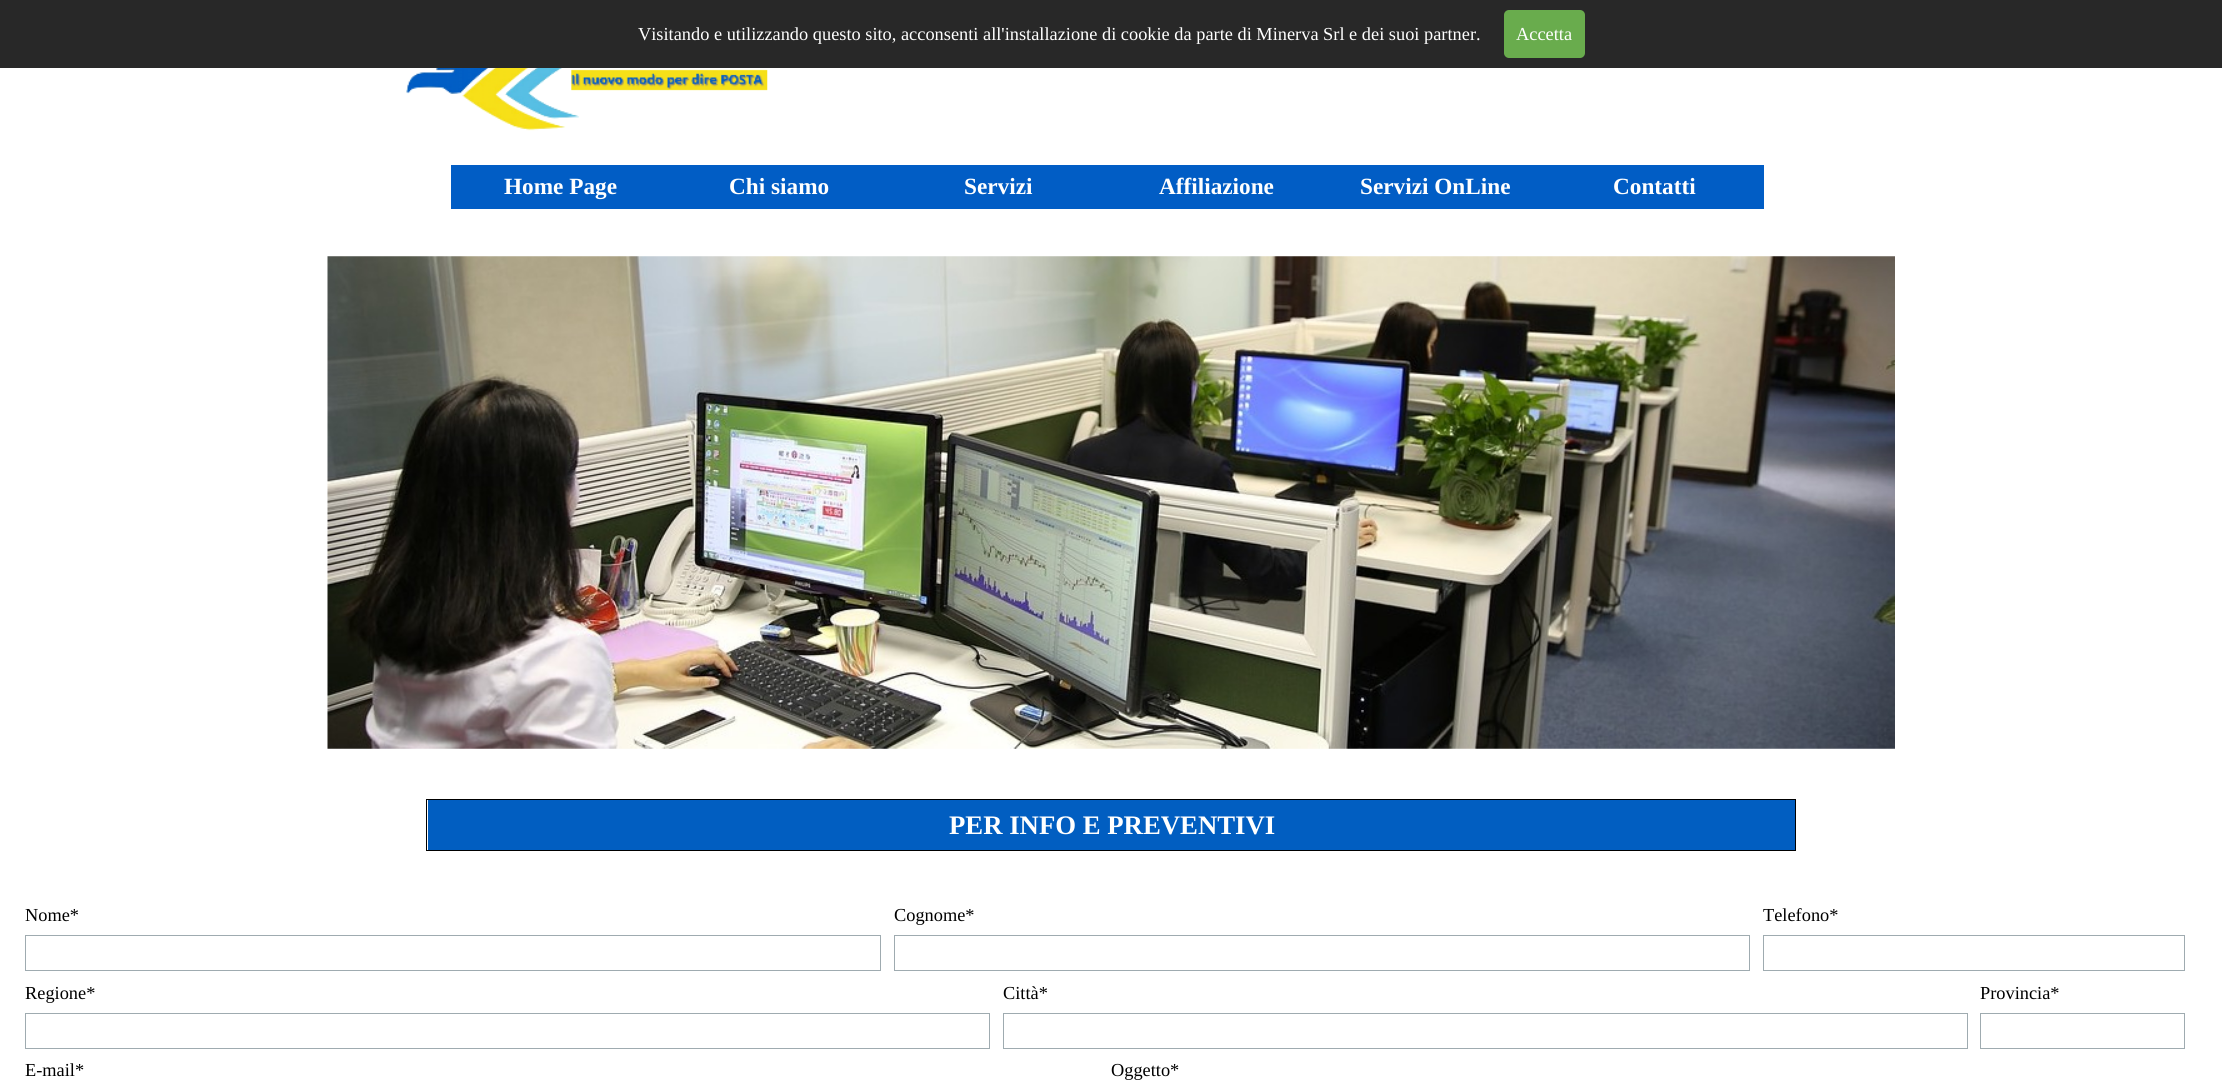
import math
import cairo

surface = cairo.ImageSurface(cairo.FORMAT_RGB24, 2222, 1082)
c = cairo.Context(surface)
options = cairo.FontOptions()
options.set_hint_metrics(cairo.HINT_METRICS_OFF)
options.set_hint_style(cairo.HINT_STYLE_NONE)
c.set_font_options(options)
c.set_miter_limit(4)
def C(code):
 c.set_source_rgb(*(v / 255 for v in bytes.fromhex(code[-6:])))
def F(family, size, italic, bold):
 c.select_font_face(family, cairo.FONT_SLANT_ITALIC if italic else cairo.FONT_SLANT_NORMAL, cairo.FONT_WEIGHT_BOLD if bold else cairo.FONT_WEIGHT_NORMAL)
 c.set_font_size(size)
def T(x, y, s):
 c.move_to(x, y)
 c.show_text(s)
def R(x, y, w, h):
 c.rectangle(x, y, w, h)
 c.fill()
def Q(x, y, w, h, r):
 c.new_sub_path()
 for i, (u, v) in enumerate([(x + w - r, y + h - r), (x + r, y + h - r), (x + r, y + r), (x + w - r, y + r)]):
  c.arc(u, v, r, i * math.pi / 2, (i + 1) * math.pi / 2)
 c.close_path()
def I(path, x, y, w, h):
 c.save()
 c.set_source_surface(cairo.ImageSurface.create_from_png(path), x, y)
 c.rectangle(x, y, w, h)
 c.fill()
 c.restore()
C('ffffff')
c.paint()
C('282828')
R(0,0,2222,68)
F('Liberation Serif',18.35,0,0)
C('ffffff')
T(638,40,'Visitando e utilizzando questo sito, acconsenti all\'installazione di cookie da parte di Minerva Srl e dei suoi partner.')
C('69ac4d')
Q(1504,10,81,48,5)
c.fill()
C('ffffff')
T(1516,40,'Accetta')
I('1.png',406,68,362,63)
C('015dc5')
R(451,165,1313,44)
F('Liberation Serif',23.25,0,1)
C('ffffff')
T(504,194,'Home Page')
T(729,194,'Chi siamo')
T(964,194,'Servizi')
T(1159,194,'Affiliazione')
T(1360,194,'Servizi OnLine')
T(1613,194,'Contatti')
I('2.png',327,256,1568,493)
C('015ec1')
R(428,800,1367,50)
C('000000')
R(426,799,1370,1)
R(1795,799,1,52)
R(426,850,1370,1)
R(426,799,1,52)
F('Liberation Serif',26.75,0,1)
C('ffffff')
T(949,834,'PER INFO E PREVENTIVI')
F('Liberation Serif',18.35,0,0)
C('000000')
T(25,921,'Nome*')
c.rectangle(25.5,935.5,855,35)
C('9fabb0')
c.set_line_width(1)
c.stroke()
C('000000')
T(894,921,'Cognome*')
c.rectangle(894.5,935.5,855,35)
C('9fabb0')
c.stroke()
C('000000')
T(1763,921,'Telefono*')
c.rectangle(1763.5,935.5,421,35)
C('9fabb0')
c.stroke()
C('000000')
T(25,999,'Regione*')
c.rectangle(25.5,1013.5,964,35)
C('9fabb0')
c.stroke()
C('000000')
T(1003,999,'Città*')
c.rectangle(1003.5,1013.5,964,35)
C('9fabb0')
c.stroke()
C('000000')
T(1980,999,'Provincia*')
c.rectangle(1980.5,1013.5,204,35)
C('9fabb0')
c.stroke()
C('000000')
T(25,1076,'E-mail*')
T(1111,1076,'Oggetto*')
surface.write_to_png('o.png')
